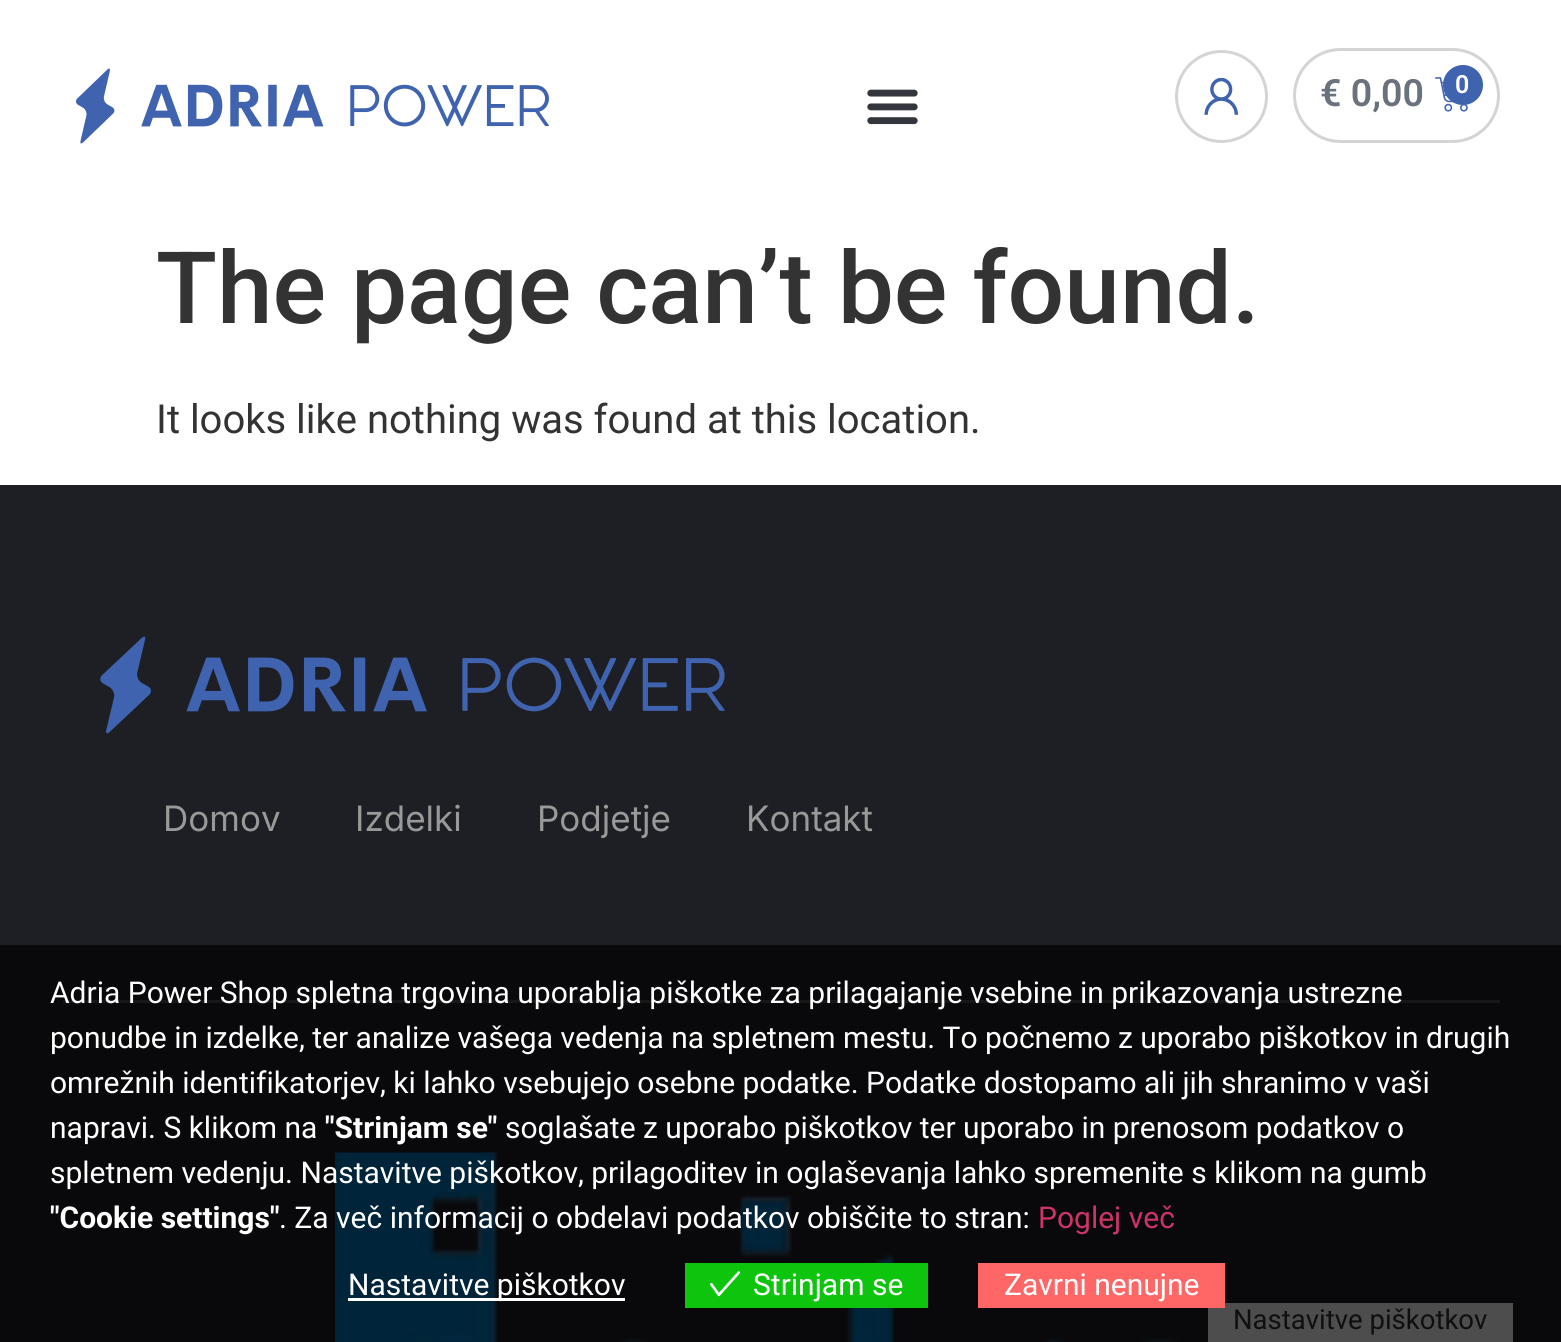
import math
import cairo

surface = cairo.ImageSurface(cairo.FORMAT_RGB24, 1561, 1342)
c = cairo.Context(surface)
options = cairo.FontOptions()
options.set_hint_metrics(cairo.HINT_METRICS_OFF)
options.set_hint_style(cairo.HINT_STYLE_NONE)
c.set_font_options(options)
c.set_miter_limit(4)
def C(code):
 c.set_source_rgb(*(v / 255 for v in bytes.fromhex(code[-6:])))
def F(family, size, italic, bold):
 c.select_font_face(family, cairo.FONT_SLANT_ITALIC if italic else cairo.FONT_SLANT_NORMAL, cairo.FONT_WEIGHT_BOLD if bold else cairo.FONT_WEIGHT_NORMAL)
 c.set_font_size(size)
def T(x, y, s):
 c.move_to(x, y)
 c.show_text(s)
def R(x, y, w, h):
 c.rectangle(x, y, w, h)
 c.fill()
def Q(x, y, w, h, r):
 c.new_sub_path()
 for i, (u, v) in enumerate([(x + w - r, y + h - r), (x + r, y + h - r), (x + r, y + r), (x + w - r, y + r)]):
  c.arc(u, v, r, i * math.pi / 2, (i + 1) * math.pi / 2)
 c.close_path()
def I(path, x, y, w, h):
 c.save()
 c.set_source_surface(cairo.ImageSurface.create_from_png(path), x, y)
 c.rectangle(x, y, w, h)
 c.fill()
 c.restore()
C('ffffff')
c.paint()
I('1.png',75,68,474,76)
I('2.png',867,89,51,36)
c.arc(1221.5,96.5,45,0,2 * math.pi)
C('d4d4d4')
c.set_line_width(3)
c.stroke()
I('3.png',1204,78,34,37)
Q(1294.5,49.5,204,92,46)
c.stroke()
F('Roboto SemiBold',37.5,0,0)
C('69727d')
T(1320,106,'€ 0,00')
I('4.png',1435,77,33,35)
C('3f63af')
c.arc(1463,85,20,0,2 * math.pi)
c.fill()
F('Roboto SemiBold',25,0,0)
C('ffffff')
T(1455,93,'0')
F('Roboto Medium',100,0,0)
C('333333')
T(156,323,'The page can’t be found.')
F('Roboto',40,0,0)
T(156,433,'It looks like nothing was found at this location.')
C('1d1f24')
R(0,485,1561,460)
C('09090b')
R(0,945,1561,397)
C('171717')
R(63,1000,1437,3)
I('5.png',100,636,625,98)
F('Inter',35,0,0)
C('999999')
T(163,831,'Domov')
T(355,831,'Izdelki')
T(537,831,'Podjetje')
T(746,831,'Kontakt')
I('6.png',335,1152,844,190)
F('Roboto',30,0,0)
C('ffffff')
T(50,1003,'Adria Power Shop spletna trgovina uporablja piškotke za prilagajanje vsebine in prikazovanja ustrezne')
T(50,1048,'ponudbe in izdelke, ter analize vašega vedenja na spletnem mestu. To počnemo z uporabo piškotkov in drugih')
T(50,1093,'omrežnih identifikatorjev, ki lahko vsebujejo osebne podatke. Podatke dostopamo ali jih shranimo v vaši')
T(50,1138,'napravi. S klikom na')
F('Roboto',30,0,1)
T(325,1138,'"Strinjam se"')
F('Roboto',30,0,0)
T(505,1138,'soglašate z uporabo piškotkov ter uporabo in prenosom podatkov o')
T(50,1183,'spletnem vedenju. Nastavitve piškotkov, prilagoditev in oglaševanja lahko spremenite s klikom na gumb')
F('Roboto',30,0,1)
T(50,1228,'"Cookie settings"')
F('Roboto',30,0,0)
T(279,1228,'. Za več informacij o obdelavi podatkov obiščite to stran:')
C('cc3366')
T(1038,1228,'Poglej več')
C('ffffff')
R(348,1298,277,3)
T(348,1295,'Nastavitve piškotkov')
C('0ec50e')
R(685,1263,243,45)
I('7.png',710,1271,30,26)
C('ffffff')
T(753,1295,'Strinjam se')
C('4d4d4d')
R(1208,1303,305,39)
C('ff6666')
R(978,1263,247,45)
C('ffffff')
T(1004,1295,'Zavrni nenujne')
F('Roboto',27.5,0,0)
C('0f0f0f')
T(1233,1329,'Nastavitve piškotkov')
surface.write_to_png('o.png')
